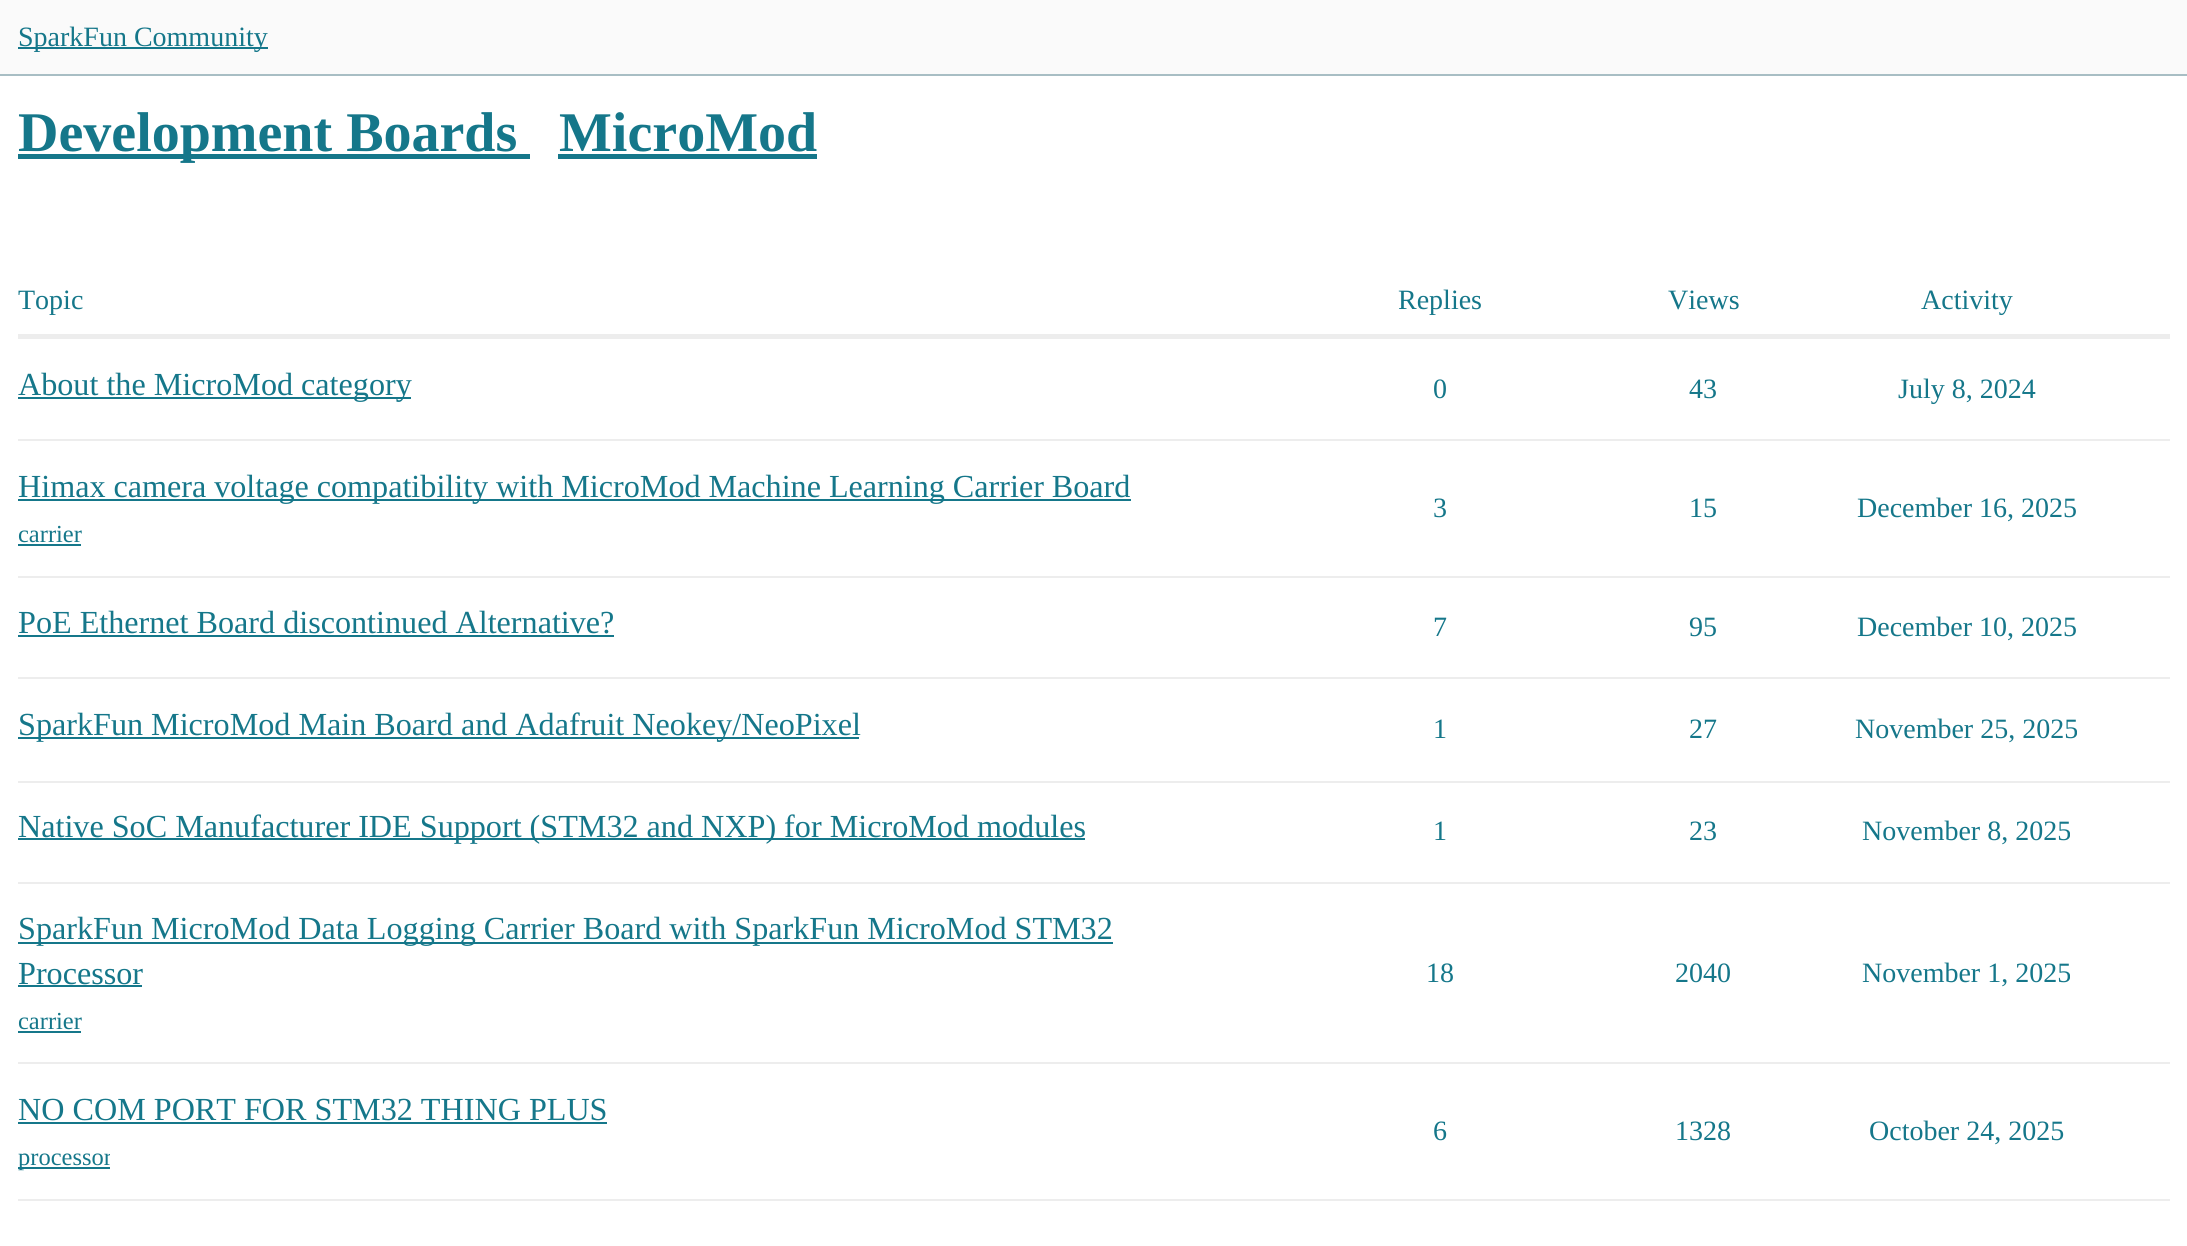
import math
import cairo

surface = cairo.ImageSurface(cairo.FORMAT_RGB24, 2187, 1246)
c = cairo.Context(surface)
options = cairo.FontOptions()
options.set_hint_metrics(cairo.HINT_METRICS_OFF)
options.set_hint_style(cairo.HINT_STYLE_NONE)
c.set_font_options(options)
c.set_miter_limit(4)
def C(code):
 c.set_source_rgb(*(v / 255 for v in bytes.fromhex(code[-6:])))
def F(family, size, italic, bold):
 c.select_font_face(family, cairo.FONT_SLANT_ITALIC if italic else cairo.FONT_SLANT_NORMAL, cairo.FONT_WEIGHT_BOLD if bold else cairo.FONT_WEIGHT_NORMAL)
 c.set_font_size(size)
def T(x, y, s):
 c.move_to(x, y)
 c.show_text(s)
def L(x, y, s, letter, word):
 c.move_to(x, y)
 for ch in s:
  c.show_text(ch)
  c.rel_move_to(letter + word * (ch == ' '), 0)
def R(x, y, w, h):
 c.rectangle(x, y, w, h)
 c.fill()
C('ffffff')
c.paint()
C('fafafa')
R(0,0,2187,74)
C('a8bec4')
R(0,74,2187,2)
C('15778a')
R(18,47,250,2)
F('Liberation Serif',28,0,0)
T(18,46,'SparkFun Community')
R(18,154,512,5)
F('Liberation Serif',56,0,1)
T(18,151,'Development Boards')
T(559,151,'MicroMod')
R(558,154,259,5)
F('Liberation Serif',28,0,0)
T(18,309,'Topic')
T(1398,309,'Replies')
T(1668,309,'Views')
T(1921,309,'Activity')
C('ededed')
R(18,334,2152,5)
R(18,439,2152,2)
C('15778a')
R(18,397,393,2)
F('Liberation Serif',32.15,0,0)
T(18,395,'About the MicroMod category')
F('Liberation Serif',28,0,0)
T(1433,398,'0')
T(1689,398,'43')
T(1898,398,'July 8, 2024')
C('ededed')
R(18,576,2152,2)
C('15778a')
R(18,499,1113,2)
F('Liberation Serif',32.15,0,0)
L(18,497,'Himax camera voltage compatibility with MicroMod Machine Learning Carrier Board',0,-.1)
F('Liberation Serif',24.5,0,0)
T(18,542,'carrier')
R(18,544,63,2)
F('Liberation Serif',28,0,0)
T(1433,517,'3')
T(1689,517,'15')
T(1857,517,'December 16, 2025')
C('ededed')
R(18,677,2152,2)
F('Liberation Serif',32.15,0,0)
C('15778a')
T(18,633,'PoE Ethernet Board discontinued Alternative?')
R(18,635,596,2)
F('Liberation Serif',28,0,0)
T(1433,636,'7')
T(1689,636,'95')
T(1857,636,'December 10, 2025')
C('ededed')
R(18,781,2152,2)
C('15778a')
R(18,737,841,2)
F('Liberation Serif',32.15,0,0)
T(18,735,'SparkFun MicroMod Main Board and Adafruit Neokey/NeoPixel')
F('Liberation Serif',28,0,0)
T(1433,738,'1')
T(1689,738,'27')
T(1855,738,'November 25, 2025')
C('ededed')
R(18,882,2152,2)
C('15778a')
R(18,838,1067,2)
F('Liberation Serif',32.15,0,0)
T(18,837,'Native SoC Manufacturer IDE Support (STM32 and NXP) for MicroMod modules')
F('Liberation Serif',28,0,0)
T(1433,840,'1')
T(1689,840,'23')
T(1862,840,'November 8, 2025')
C('ededed')
R(18,1062,2152,2)
C('15778a')
R(18,942,1095,2)
F('Liberation Serif',32.15,0,0)
L(18,939,'SparkFun MicroMod Data Logging Carrier Board with SparkFun MicroMod STM32',0,-.1)
T(18,984,'Processor')
R(18,985,124,2)
F('Liberation Serif',24.5,0,0)
T(18,1029,'carrier')
R(18,1031,63,2)
F('Liberation Serif',28,0,0)
T(1426,982,'18')
T(1675,982,'2040')
T(1862,982,'November 1, 2025')
C('ededed')
R(18,1199,2152,2)
F('Liberation Serif',32.15,0,0)
C('15778a')
T(18,1120,'NO COM PORT FOR STM32 THING PLUS')
R(18,1122,589,2)
R(18,1167,92,2)
c.save()
c.rectangle(18,1141,92,33)
c.clip()
F('Liberation Serif',24.5,0,0)
T(18,1165,'processor')
c.restore()
F('Liberation Serif',28,0,0)
T(1433,1140,'6')
T(1675,1140,'1328')
T(1869,1140,'October 24, 2025')
surface.write_to_png('o.png')
